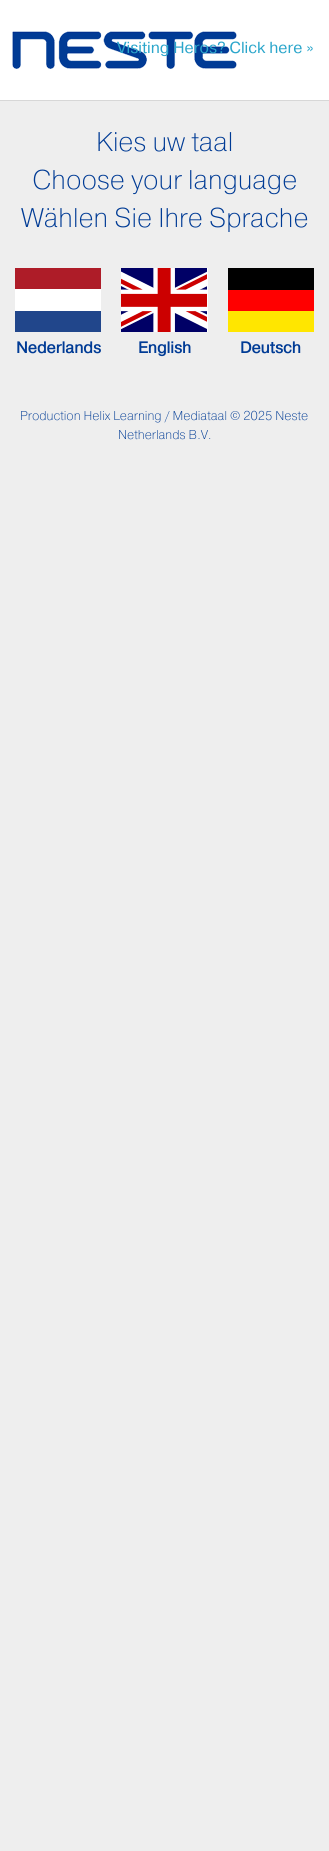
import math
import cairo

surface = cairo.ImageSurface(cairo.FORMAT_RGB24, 329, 1851)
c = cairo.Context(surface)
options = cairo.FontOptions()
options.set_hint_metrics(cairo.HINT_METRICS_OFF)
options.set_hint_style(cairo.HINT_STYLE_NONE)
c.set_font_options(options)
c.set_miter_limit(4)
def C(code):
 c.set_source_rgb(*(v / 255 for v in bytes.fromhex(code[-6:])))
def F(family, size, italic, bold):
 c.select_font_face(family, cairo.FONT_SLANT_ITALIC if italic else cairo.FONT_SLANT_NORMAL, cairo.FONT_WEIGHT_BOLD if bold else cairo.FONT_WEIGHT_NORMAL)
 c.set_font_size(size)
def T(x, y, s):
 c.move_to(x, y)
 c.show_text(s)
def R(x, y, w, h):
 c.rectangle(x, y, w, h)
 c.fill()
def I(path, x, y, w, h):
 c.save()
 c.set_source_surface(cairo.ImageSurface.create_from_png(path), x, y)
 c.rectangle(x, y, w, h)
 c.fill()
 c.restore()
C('eeeeee')
c.paint()
C('d7d7d7')
R(0,100,329,1)
C('ffffff')
R(0,0,329,100)
I('1.png',12,31,225,38)
F('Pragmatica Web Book',16,0,0)
C('2ba6cb')
T(117,53,'Visiting Heros? Click here »')
F('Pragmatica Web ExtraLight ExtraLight',27,0,0)
C('003b95')
T(96,151,'Kies uw taal')
T(32,189,'Choose your language')
T(21,227,'Wählen Sie Ihre Sprache')
C('ffffff')
R(15,289,86,22)
C('21468b')
R(15,311,86,21)
C('ae1c28')
R(15,268,86,21)
F('Pragmatica Web Book',16,0,1)
C('003b95')
T(16,353,'Nederlands')
C('ffffff')
R(207,268,1,64)
I('2.png',121,268,86,64)
C('003b95')
T(138,353,'English')
C('ffe600')
R(228,311,86,21)
C('000000')
R(228,268,86,22)
C('ff0000')
R(228,290,86,21)
C('003b95')
T(240,353,'Deutsch')
F('Pragmatica Web ExtraLight ExtraLight',12.8,0,0)
T(20,420,'Production Helix Learning / Mediataal © 2025 Neste')
T(118,439,'Netherlands B.V.')
surface.write_to_png('o.png')
